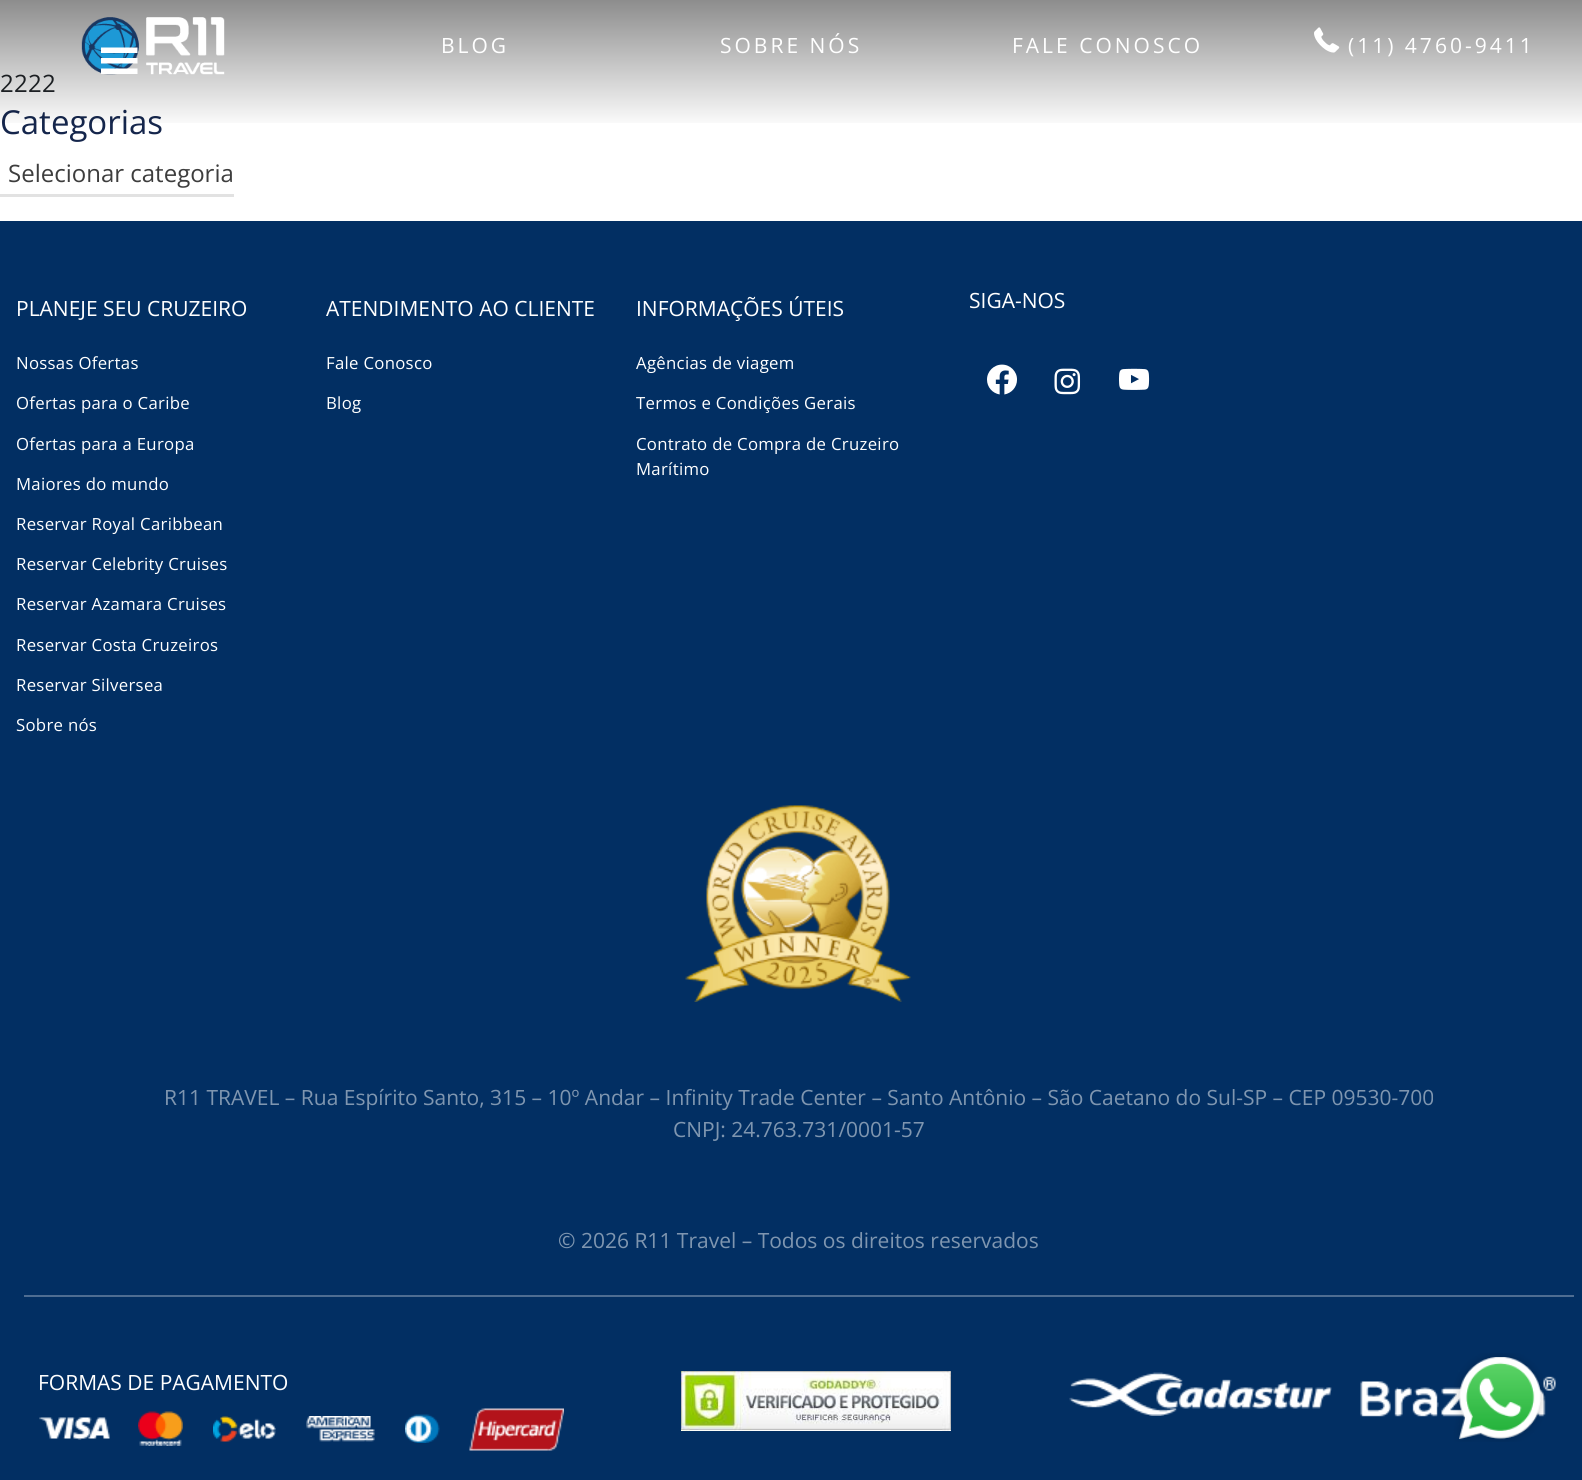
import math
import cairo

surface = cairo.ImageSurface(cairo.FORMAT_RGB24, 1582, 1480)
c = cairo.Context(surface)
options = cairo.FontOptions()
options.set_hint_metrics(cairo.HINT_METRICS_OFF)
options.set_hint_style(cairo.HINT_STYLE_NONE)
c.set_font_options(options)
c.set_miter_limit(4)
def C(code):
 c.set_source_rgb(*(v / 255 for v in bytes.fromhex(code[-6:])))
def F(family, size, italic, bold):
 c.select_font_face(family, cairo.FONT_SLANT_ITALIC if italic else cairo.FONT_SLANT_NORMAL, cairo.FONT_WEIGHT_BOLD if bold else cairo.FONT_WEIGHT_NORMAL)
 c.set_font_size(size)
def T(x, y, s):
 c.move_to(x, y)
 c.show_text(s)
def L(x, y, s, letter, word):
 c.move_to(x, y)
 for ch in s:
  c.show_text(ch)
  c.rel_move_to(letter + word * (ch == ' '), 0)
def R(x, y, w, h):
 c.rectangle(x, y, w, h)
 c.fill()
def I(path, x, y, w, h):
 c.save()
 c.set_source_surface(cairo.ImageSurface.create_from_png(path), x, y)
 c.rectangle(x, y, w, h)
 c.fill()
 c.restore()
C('ffffff')
c.paint()
F('Open Sans',24,0,0)
C('212529')
L(0,92,'2222',.3,0)
F('Open Sans',33,0,0)
C('15264c')
T(0,134,'Categorias')
gradient = cairo.LinearGradient(791,-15,791,129)
gradient.add_color_stop_rgba(0,0,0,0,.5)
gradient.add_color_stop_rgba(1,0,0,0,0)
c.set_source(gradient)
R(0,0,1582,123)
I('1.png',81,17,144,58)
F('Open Sans',21,0,0)
C('ffffff')
L(441,53,'BLOG',3,0)
L(720,53,'SOBRE NÓS',3,0)
L(1012,53,'FALE CONOSCO',3,0)
I('2.png',1314,27,26,26)
L(1348,53,'(11) 4760-9411',3,0)
c.new_path()
c.move_to(101,74)
c.line_to(137.5,74)
c.line_to(137.5,68.5)
c.line_to(101,68.5)
c.close_path()
c.move_to(101,47.5)
c.line_to(101,53)
c.line_to(137.5,53)
c.line_to(137.5,47.5)
c.close_path()
c.move_to(101,63.5)
c.line_to(137.5,63.5)
c.line_to(137.5,58)
c.line_to(101,58)
c.close_path()
c.fill()
C('e2e2e2')
R(0,194,234,3)
F('Open Sans',24,0,0)
C('3d3d3d')
T(8,182,'Selecionar categoria')
C('022f63')
R(0,221,1582,1259)
F('Open Sans',21,0,0)
C('ffffff')
T(16,316,'PLANEJE SEU CRUZEIRO')
F('Open Sans',16.75,0,0)
L(16,369,'Nossas Ofertas',.3,0)
L(16,409,'Ofertas para o Caribe',.3,0)
L(16,450,'Ofertas para a Europa',.3,0)
L(16,490,'Maiores do mundo',.3,0)
L(16,530,'Reservar Royal Caribbean',.3,0)
L(16,570,'Reservar Celebrity Cruises',.3,0)
L(16,610,'Reservar Azamara Cruises',.3,0)
L(16,651,'Reservar Costa Cruzeiros',.3,0)
L(16,691,'Reservar Silversea',.3,0)
L(16,731,'Sobre nós',.3,0)
F('Open Sans',21,0,0)
T(326,316,'ATENDIMENTO AO CLIENTE')
F('Open Sans',16.75,0,0)
L(326,369,'Fale Conosco',.3,0)
L(326,409,'Blog',.3,0)
F('Open Sans',21,0,0)
T(636,316,'INFORMAÇÕES ÚTEIS')
F('Open Sans',16.75,0,0)
L(636,369,'Agências de viagem',.3,0)
L(636,409,'Termos e Condições Gerais',.3,0)
L(636,450,'Contrato de Compra de Cruzeiro',.3,0)
L(636,475,'Marítimo',.3,0)
F('Open Sans',21,0,0)
T(969,308,'SIGA-NOS')
I('3.png',987,364,30,31)
I('4.png',1054,368,27,27)
I('5.png',1119,368,31,22)
C('4e6d92')
R(24,1295,1550,2)
I('6.png',685,805,226,197)
C('7f96b0')
T(164,1105,'R11 TRAVEL – Rua Espírito Santo, 315 – 10º Andar – Infinity Trade Center – Santo Antônio – São Caetano do Sul-SP – CEP 09530-700')
T(673,1137,'CNPJ: 24.763.731/0001-57')
T(558,1248,'© 2026 R11 Travel – Todos os direitos reservados')
C('ffffff')
T(38,1390,'FORMAS DE PAGAMENTO')
I('7.png',39,1417,71,23)
I('8.png',138,1411,45,35)
I('9.png',213,1416,63,26)
I('10.png',306,1416,69,26)
I('11.png',405,1414,35,29)
I('12.png',469,1408,95,43)
I('13.png',681,1371,270,60)
I('14.png',1069,1372,263,44)
I('15.png',1360,1376,196,41)
I('16.png',1453,1353,93,89)
surface.write_to_png('o.png')
